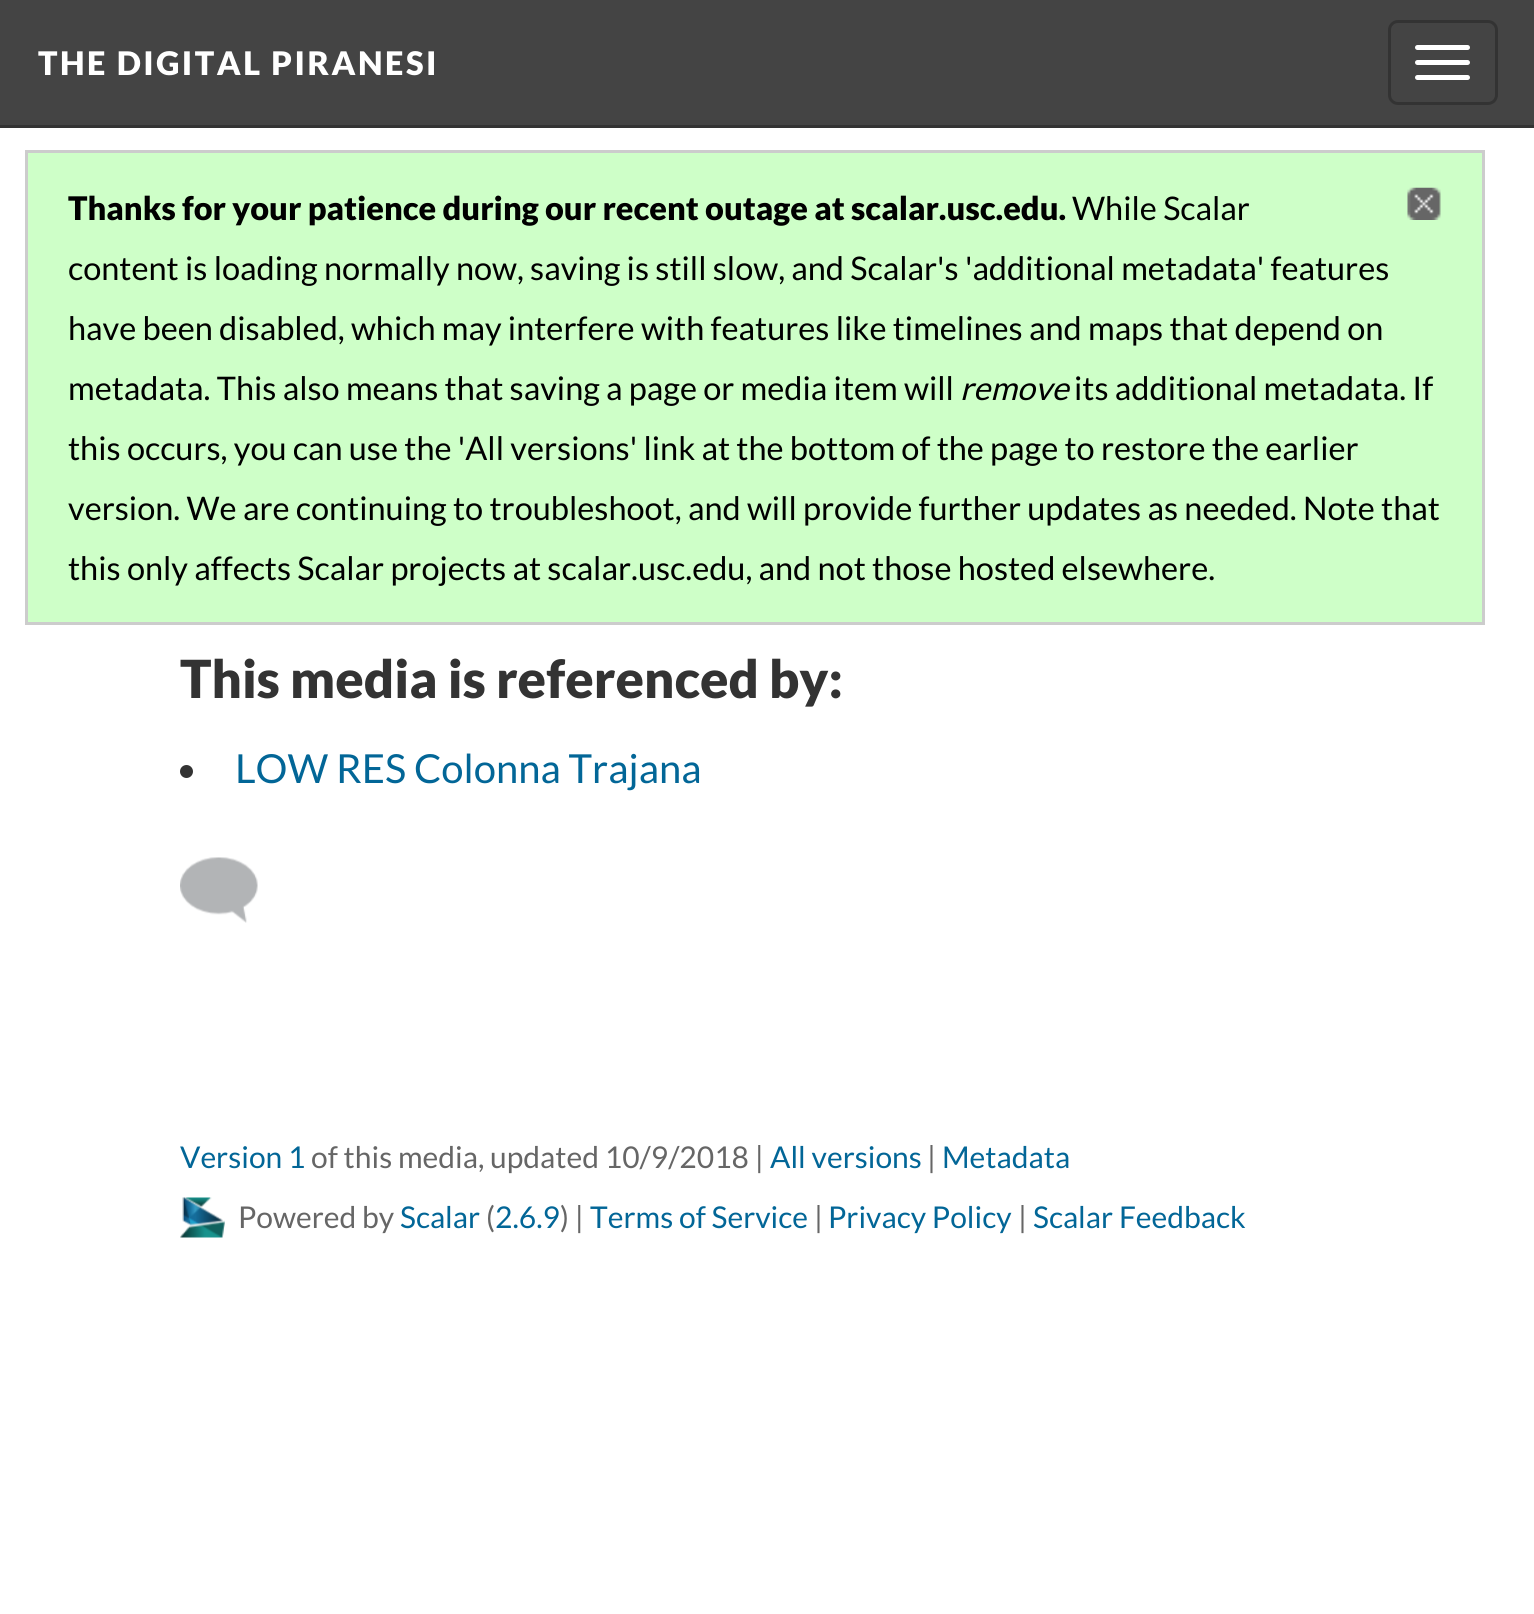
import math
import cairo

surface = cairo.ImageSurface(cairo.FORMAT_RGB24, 1534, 1614)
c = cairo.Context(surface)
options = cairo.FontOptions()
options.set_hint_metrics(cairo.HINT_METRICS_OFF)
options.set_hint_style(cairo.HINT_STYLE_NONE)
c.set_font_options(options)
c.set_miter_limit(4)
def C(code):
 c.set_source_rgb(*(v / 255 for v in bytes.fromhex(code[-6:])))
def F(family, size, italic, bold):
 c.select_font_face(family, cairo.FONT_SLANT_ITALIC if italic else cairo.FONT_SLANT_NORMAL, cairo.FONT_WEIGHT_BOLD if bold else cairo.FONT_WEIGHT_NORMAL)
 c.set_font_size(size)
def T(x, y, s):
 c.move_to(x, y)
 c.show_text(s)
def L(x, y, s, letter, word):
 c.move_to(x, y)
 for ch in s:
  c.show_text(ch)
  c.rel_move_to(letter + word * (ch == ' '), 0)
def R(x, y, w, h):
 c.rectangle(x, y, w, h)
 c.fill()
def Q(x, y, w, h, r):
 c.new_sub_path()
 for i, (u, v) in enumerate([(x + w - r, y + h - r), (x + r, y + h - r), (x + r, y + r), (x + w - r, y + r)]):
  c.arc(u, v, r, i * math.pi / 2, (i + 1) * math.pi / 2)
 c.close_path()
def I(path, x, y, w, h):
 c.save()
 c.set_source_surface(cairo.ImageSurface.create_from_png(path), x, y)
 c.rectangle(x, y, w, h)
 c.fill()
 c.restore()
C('ffffff')
c.paint()
C('444444')
R(0,0,1534,125)
C('333333')
R(0,125,1534,3)
c.save()
c.rectangle(38,0,1235,125)
c.clip()
F('Lato Black',32.5,0,0)
C('ffffff')
L(38,75,'THE DIGITAL PIRANESI',2.5,0)
c.restore()
Q(1389.5,21.5,107,82,8.5)
c.set_line_width(3)
c.stroke()
C('ffffff')
Q(1415,45,55,5,2.5)
c.fill()
Q(1415,60,55,5,2.5)
c.fill()
Q(1415,75,55,5,2.5)
c.fill()
C('ceffc8')
c.rectangle(26.5,151.5,1457,472)
c.fill_preserve()
C('cccccc')
c.stroke()
F('Lato Black',32.5,0,0)
C('000000')
T(68,220,'Thanks for your patience during our recent outage at scalar.usc.edu.')
F('Lato',32.5,0,0)
T(1072,220,'While Scalar')
I('1.png',1407,187,34,33)
T(68,280,'content is loading normally now, saving is still slow, and Scalar\'s \'additional metadata\' features')
T(68,340,'have been disabled, which may interfere with features like timelines and maps that depend on')
T(68,400,'metadata. This also means that saving a page or media item will')
F('Lato',32.5,1,0)
T(960,400,'remove')
F('Lato',32.5,0,0)
T(1074,400,'its additional metadata. If')
T(68,460,'this occurs, you can use the \'All versions\' link at the bottom of the page to restore the earlier')
T(68,520,'version. We are continuing to troubleshoot, and will provide further updates as needed. Note that')
T(68,580,'this only affects Scalar projects at scalar.usc.edu, and not those hosted elsewhere.')
F('Lato Black',52.5,0,0)
C('333333')
T(180,698,'This media is referenced by:')
c.new_path()
c.arc(186.5,771.5,6.5,0,2 * math.pi)
c.fill()
F('Lato',40,0,0)
C('026697')
T(235,783,'LOW RES Colonna Trajana')
I('2.png',180,857,78,66)
F('Lato',30,0,0)
T(180,1168,'Version 1')
C('666666')
T(311,1168,'of this media, updated 10/9/2018 |')
C('026697')
T(770,1168,'All versions')
C('666666')
T(927,1168,'|')
C('026697')
T(942,1168,'Metadata')
I('3.png',180,1197,45,41)
C('666666')
T(238,1228,'Powered by')
C('026697')
T(400,1228,'Scalar')
C('666666')
T(486,1228,'(')
C('026697')
T(495,1228,'2.6.9')
C('666666')
T(560,1228,') |')
C('026697')
T(590,1228,'Terms of Service')
C('666666')
T(814,1228,'|')
C('026697')
T(828,1228,'Privacy Policy')
C('666666')
T(1018,1228,'|')
C('026697')
T(1033,1228,'Scalar Feedback')
surface.write_to_png('o.png')
